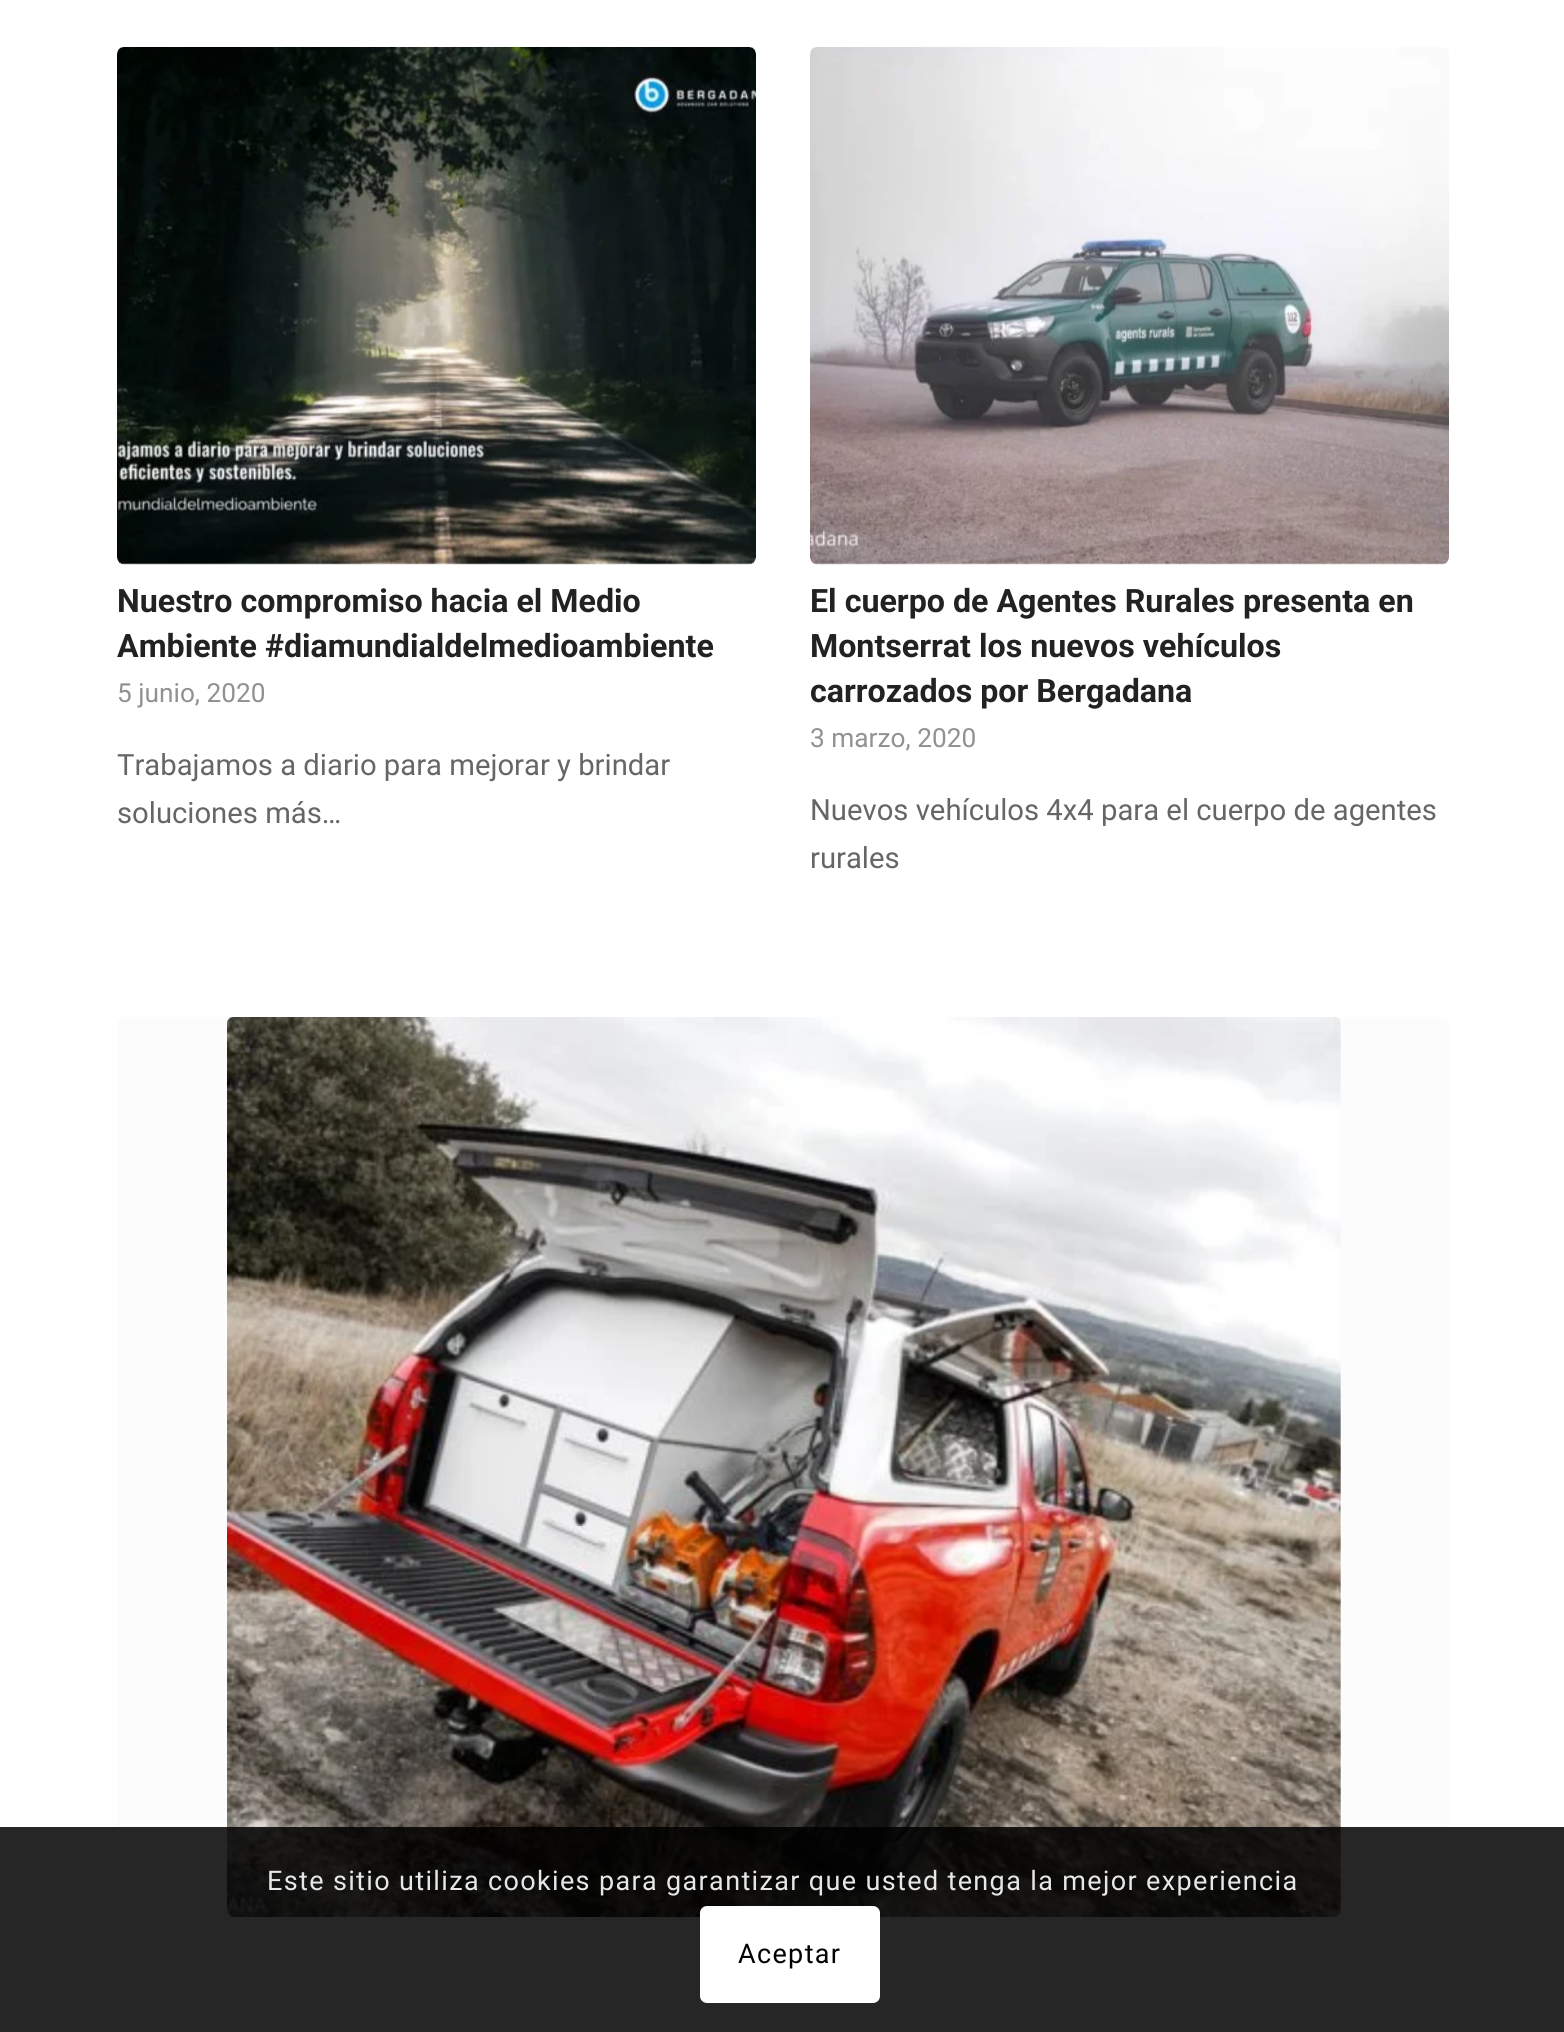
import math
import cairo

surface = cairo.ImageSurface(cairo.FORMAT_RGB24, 1564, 2032)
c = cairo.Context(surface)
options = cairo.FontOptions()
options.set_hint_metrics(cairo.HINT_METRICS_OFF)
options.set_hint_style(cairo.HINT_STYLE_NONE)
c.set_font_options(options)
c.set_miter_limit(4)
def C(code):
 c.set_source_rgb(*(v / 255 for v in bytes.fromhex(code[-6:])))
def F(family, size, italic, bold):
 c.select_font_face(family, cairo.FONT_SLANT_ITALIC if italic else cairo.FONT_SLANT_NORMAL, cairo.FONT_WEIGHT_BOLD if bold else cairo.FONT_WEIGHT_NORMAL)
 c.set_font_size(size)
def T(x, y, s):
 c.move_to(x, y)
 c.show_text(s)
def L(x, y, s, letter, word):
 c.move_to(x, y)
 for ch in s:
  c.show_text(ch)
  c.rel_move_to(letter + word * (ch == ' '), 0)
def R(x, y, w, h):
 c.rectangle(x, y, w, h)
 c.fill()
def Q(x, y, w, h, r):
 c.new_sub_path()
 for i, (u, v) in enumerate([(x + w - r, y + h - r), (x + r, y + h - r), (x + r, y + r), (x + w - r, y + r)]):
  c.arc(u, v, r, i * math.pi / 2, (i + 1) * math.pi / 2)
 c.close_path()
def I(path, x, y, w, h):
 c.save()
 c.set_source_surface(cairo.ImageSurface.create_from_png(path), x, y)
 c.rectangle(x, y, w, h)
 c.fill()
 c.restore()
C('ffffff')
c.paint()
C('fcfcfc')
Q(117,47,639,518,7)
c.fill()
I('1.png',117,47,639,518)
F('Roboto',32.2,0,1)
C('222222')
T(117,612,'Nuestro compromiso hacia el Medio')
T(117,657,'Ambiente #diamundialdelmedioambiente')
F('Roboto',26.25,0,0)
C('919191')
T(117,702,'5 junio, 2020')
F('Roboto',29.25,0,0)
C('666666')
T(117,775,'Trabajamos a diario para mejorar y brindar')
T(117,823,'soluciones más…')
C('fcfcfc')
Q(810,47,639,518,7)
c.fill()
I('2.png',810,47,639,518)
F('Roboto',32.2,0,1)
C('222222')
T(810,612,'El cuerpo de Agentes Rurales presenta en')
T(810,657,'Montserrat los nuevos vehículos')
T(810,702,'carrozados por Bergadana')
F('Roboto',26.25,0,0)
C('919191')
T(810,747,'3 marzo, 2020')
F('Roboto',29.25,0,0)
C('666666')
T(810,820,'Nuevos vehículos 4x4 para el cuerpo de agentes')
T(810,868,'rurales')
C('fcfcfc')
Q(117,1017,1332,900,7)
c.fill()
I('3.png',227,1017,1114,900)
c.set_source_rgba(0,0,0,0.85)
R(0,1827,1564,205)
F('Roboto',27,0,0)
C('e7e7e7')
L(267,1890,'Este sitio utiliza cookies para garantizar que usted tenga la mejor experiencia',1.35,0)
C('ffffff')
Q(700,1906,180,97,7)
c.fill()
C('000000')
L(738,1963,'Aceptar',1.35,0)
surface.write_to_png('o.png')
